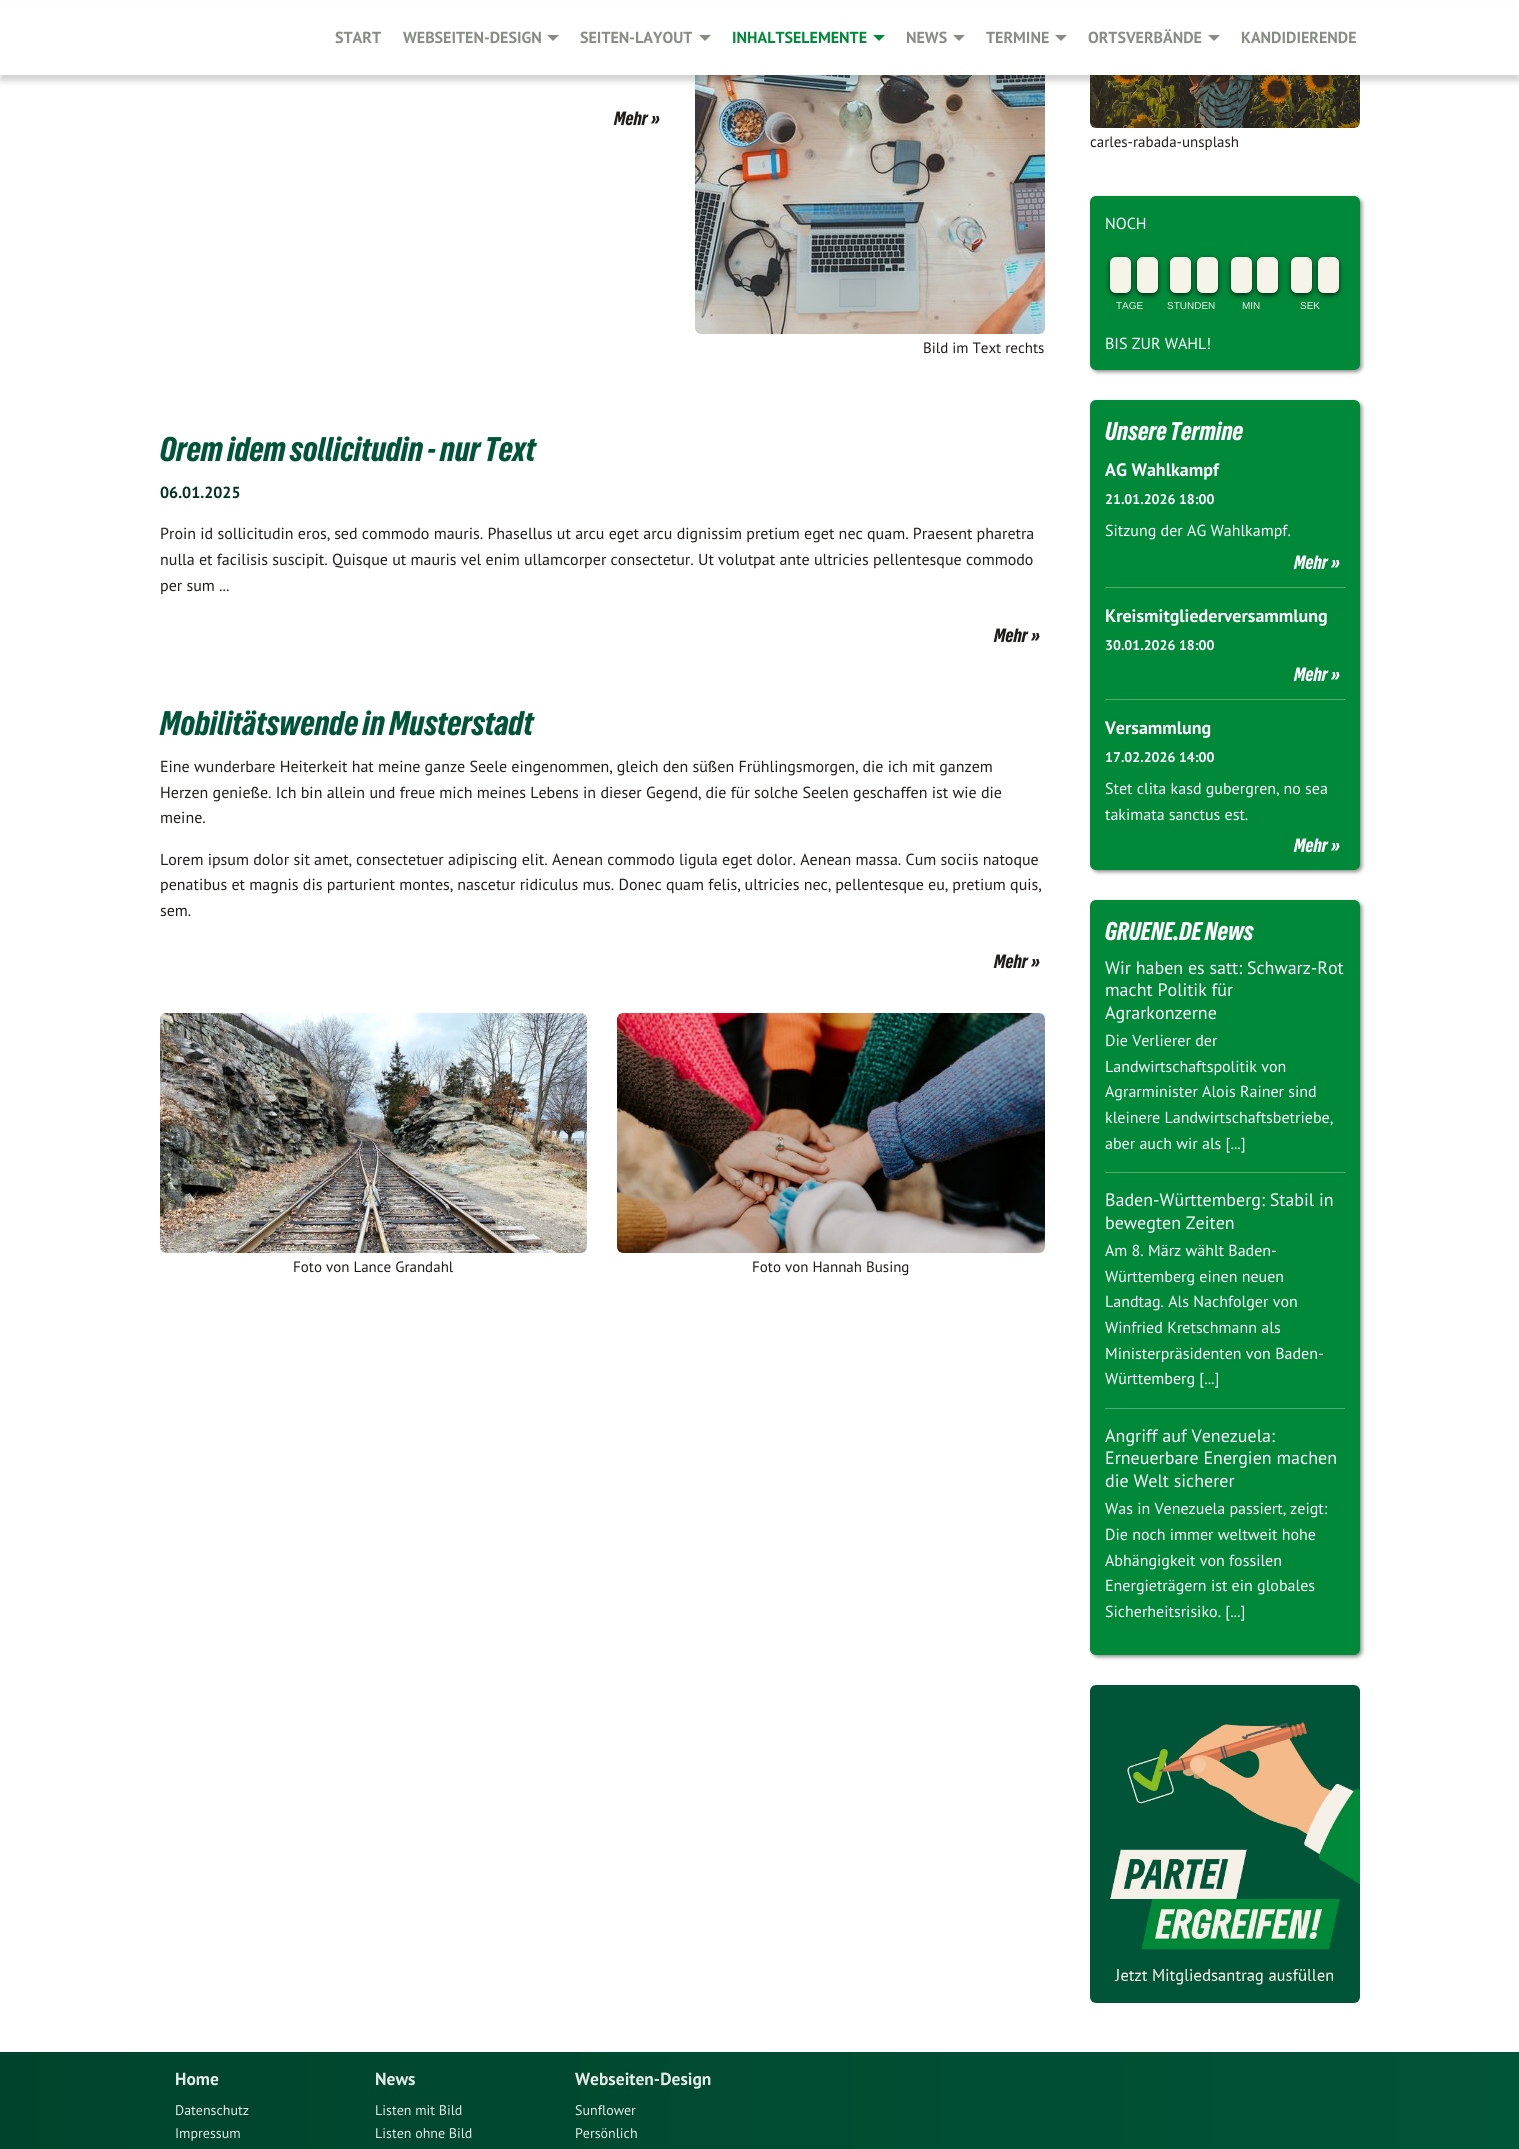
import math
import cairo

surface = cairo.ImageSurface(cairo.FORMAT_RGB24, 1519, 2149)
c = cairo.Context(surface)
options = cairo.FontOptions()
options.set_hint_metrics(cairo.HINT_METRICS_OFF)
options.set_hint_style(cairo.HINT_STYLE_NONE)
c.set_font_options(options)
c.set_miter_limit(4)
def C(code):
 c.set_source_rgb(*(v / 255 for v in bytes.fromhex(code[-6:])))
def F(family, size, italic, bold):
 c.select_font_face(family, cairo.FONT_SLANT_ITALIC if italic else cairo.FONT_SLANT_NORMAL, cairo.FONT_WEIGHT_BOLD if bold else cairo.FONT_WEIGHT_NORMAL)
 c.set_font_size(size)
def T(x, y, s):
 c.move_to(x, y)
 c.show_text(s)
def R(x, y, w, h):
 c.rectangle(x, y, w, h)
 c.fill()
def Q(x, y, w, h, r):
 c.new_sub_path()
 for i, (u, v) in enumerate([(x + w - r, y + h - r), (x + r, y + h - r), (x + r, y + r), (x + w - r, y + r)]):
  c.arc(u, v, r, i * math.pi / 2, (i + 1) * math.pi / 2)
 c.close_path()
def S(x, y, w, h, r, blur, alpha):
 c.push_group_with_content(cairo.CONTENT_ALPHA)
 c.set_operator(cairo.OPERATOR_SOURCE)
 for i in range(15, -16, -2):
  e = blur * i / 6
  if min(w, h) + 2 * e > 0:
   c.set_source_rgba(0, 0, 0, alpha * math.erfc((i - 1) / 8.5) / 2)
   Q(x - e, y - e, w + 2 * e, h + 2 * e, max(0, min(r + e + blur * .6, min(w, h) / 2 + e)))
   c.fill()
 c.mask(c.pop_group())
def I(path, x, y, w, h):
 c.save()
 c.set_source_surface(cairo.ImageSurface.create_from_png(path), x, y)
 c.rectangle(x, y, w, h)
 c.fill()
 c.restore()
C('ffffff')
c.paint()
I('1.png',695,75,350,259)
I('4.png',1090,75,270,53)
C('201d1b')
S(0,6,1519,75,0,3,.2)
C('ffffff')
R(0,1,1519,74)
F('PT Sans',16,0,1)
C('878c85')
T(335,43,'START')
T(403,43,'WEBSEITEN-DESIGN')
c.new_path()
c.move_to(547,35)
c.line_to(559,35)
c.line_to(553,41)
c.close_path()
c.fill()
T(580,43,'SEITEN-LAYOUT')
c.new_path()
c.move_to(699,35)
c.line_to(711,35)
c.line_to(705,41)
c.close_path()
c.fill()
C('008939')
T(732,43,'INHALTSELEMENTE')
c.new_path()
c.move_to(873,35)
c.line_to(885,35)
c.line_to(879,41)
c.close_path()
c.fill()
C('878c85')
T(906,43,'NEWS')
c.new_path()
c.move_to(953,35)
c.line_to(965,35)
c.line_to(959,41)
c.close_path()
c.fill()
T(986,43,'TERMINE')
c.new_path()
c.move_to(1055,35)
c.line_to(1067,35)
c.line_to(1061,41)
c.close_path()
c.fill()
T(1088,43,'ORTSVERBÄNDE')
c.new_path()
c.move_to(1208,35)
c.line_to(1220,35)
c.line_to(1214,41)
c.close_path()
c.fill()
T(1241,43,'KANDIDIERENDE')
F('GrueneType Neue',18,0,0)
C('201d1b')
T(614,125,'Mehr')
T(651,125,'»')
F('PT Sans',15,0,0)
T(923,353,'Bild im Text rechts')
F('GrueneType Neue',32,0,0)
C('005437')
T(160,461,'Orem idem sollicitudin - nur Text')
F('PT Sans',16,0,1)
C('003221')
T(160,498,'06.01.2025')
F('PT Sans',16,0,0)
C('201d1b')
T(160,539,'Proin id sollicitudin eros, sed commodo mauris. Phasellus ut arcu eget arcu dignissim pretium eget nec quam. Praesent pharetra')
T(160,565,'nulla et facilisis suscipit. Quisque ut mauris vel enim ullamcorper consectetur. Ut volutpat ante ultricies pellentesque commodo')
T(160,591,'per sum ...')
F('GrueneType Neue',18,0,0)
T(994,642,'Mehr')
T(1031,642,'»')
F('GrueneType Neue',32,0,0)
C('005437')
T(160,735,'Mobilitätswende in Musterstadt')
F('PT Sans',16,0,0)
C('201d1b')
T(160,772,'Eine wunderbare Heiterkeit hat meine ganze Seele eingenommen, gleich den süßen Frühlingsmorgen, die ich mit ganzem')
T(160,798,'Herzen genieße. Ich bin allein und freue mich meines Lebens in dieser Gegend, die für solche Seelen geschaffen ist wie die')
T(160,823,'meine.')
T(160,865,'Lorem ipsum dolor sit amet, consectetuer adipiscing elit. Aenean commodo ligula eget dolor. Aenean massa. Cum sociis natoque')
T(160,890,'penatibus et magnis dis parturient montes, nascetur ridiculus mus. Donec quam felis, ultricies nec, pellentesque eu, pretium quis,')
T(160,916,'sem.')
F('GrueneType Neue',18,0,0)
T(994,968,'Mehr')
T(1031,968,'»')
I('2.png',160,1013,427,240)
F('PT Sans',15,0,0)
T(293,1272,'Foto von Lance Grandahl')
I('3.png',617,1013,428,240)
T(752,1272,'Foto von Hannah Busing')
T(1090,147,'carles-rabada-unsplash')
C('201d1b')
S(1092,198,270,174,6,2,.5)
C('008939')
Q(1090,196,270,174,6)
c.fill()
F('PT Sans',16,0,0)
C('ffffff')
T(1105,229,'NOCH')
C('000000')
S(1110,259,21,36,6,2.5,.7)
S(1137,259,21,36,6,2.5,.7)
C('f6f3e9')
c.new_path()
c.move_to(1116,257)
c.line_to(1125,257)
c.curve_to(1128.5,257,1131,259.5,1131,263)
c.line_to(1131,275)
c.line_to(1110,275)
c.line_to(1110,263)
c.curve_to(1110,259.5,1112.5,257,1116,257)
c.close_path()
c.fill()
c.new_path()
c.move_to(1110,275)
c.line_to(1131,275)
c.line_to(1131,287)
c.curve_to(1131,290.5,1128.5,293,1125,293)
c.line_to(1116,293)
c.curve_to(1112.5,293,1110,290.5,1110,287)
c.close_path()
c.fill()
c.new_path()
c.move_to(1143,257)
c.line_to(1152,257)
c.curve_to(1155.5,257,1158,259.5,1158,263)
c.line_to(1158,275)
c.line_to(1137,275)
c.line_to(1137,263)
c.curve_to(1137,259.5,1139.5,257,1143,257)
c.close_path()
c.fill()
c.new_path()
c.move_to(1137,275)
c.line_to(1158,275)
c.line_to(1158,287)
c.curve_to(1158,290.5,1155.5,293,1152,293)
c.line_to(1143,293)
c.curve_to(1139.5,293,1137,290.5,1137,287)
c.close_path()
c.fill()
C('000000')
S(1170,259,21,36,6,2.5,.7)
S(1197,259,21,36,6,2.5,.7)
C('f6f3e9')
c.new_path()
c.move_to(1176,257)
c.line_to(1185,257)
c.curve_to(1188.5,257,1191,259.5,1191,263)
c.line_to(1191,275)
c.line_to(1170,275)
c.line_to(1170,263)
c.curve_to(1170,259.5,1172.5,257,1176,257)
c.close_path()
c.fill()
c.new_path()
c.move_to(1170,275)
c.line_to(1191,275)
c.line_to(1191,287)
c.curve_to(1191,290.5,1188.5,293,1185,293)
c.line_to(1176,293)
c.curve_to(1172.5,293,1170,290.5,1170,287)
c.close_path()
c.fill()
c.new_path()
c.move_to(1203,257)
c.line_to(1212,257)
c.curve_to(1215.5,257,1218,259.5,1218,263)
c.line_to(1218,275)
c.line_to(1197,275)
c.line_to(1197,263)
c.curve_to(1197,259.5,1199.5,257,1203,257)
c.close_path()
c.fill()
c.new_path()
c.move_to(1197,275)
c.line_to(1218,275)
c.line_to(1218,287)
c.curve_to(1218,290.5,1215.5,293,1212,293)
c.line_to(1203,293)
c.curve_to(1199.5,293,1197,290.5,1197,287)
c.close_path()
c.fill()
C('000000')
S(1231,259,21,36,6,2.5,.7)
S(1257,259,21,36,6,2.5,.7)
C('f6f3e9')
c.new_path()
c.move_to(1237,257)
c.line_to(1246,257)
c.curve_to(1249.5,257,1252,259.5,1252,263)
c.line_to(1252,275)
c.line_to(1231,275)
c.line_to(1231,263)
c.curve_to(1231,259.5,1233.5,257,1237,257)
c.close_path()
c.fill()
c.new_path()
c.move_to(1231,275)
c.line_to(1252,275)
c.line_to(1252,287)
c.curve_to(1252,290.5,1249.5,293,1246,293)
c.line_to(1237,293)
c.curve_to(1233.5,293,1231,290.5,1231,287)
c.close_path()
c.fill()
c.new_path()
c.move_to(1263,257)
c.line_to(1272,257)
c.curve_to(1275.5,257,1278,259.5,1278,263)
c.line_to(1278,275)
c.line_to(1257,275)
c.line_to(1257,263)
c.curve_to(1257,259.5,1259.5,257,1263,257)
c.close_path()
c.fill()
c.new_path()
c.move_to(1257,275)
c.line_to(1278,275)
c.line_to(1278,287)
c.curve_to(1278,290.5,1275.5,293,1272,293)
c.line_to(1263,293)
c.curve_to(1259.5,293,1257,290.5,1257,287)
c.close_path()
c.fill()
C('000000')
S(1291,259,21,36,6,2.5,.7)
S(1318,259,21,36,6,2.5,.7)
C('f6f3e9')
c.new_path()
c.move_to(1297,257)
c.line_to(1306,257)
c.curve_to(1309.5,257,1312,259.5,1312,263)
c.line_to(1312,275)
c.line_to(1291,275)
c.line_to(1291,263)
c.curve_to(1291,259.5,1293.5,257,1297,257)
c.close_path()
c.fill()
c.new_path()
c.move_to(1291,275)
c.line_to(1312,275)
c.line_to(1312,287)
c.curve_to(1312,290.5,1309.5,293,1306,293)
c.line_to(1297,293)
c.curve_to(1293.5,293,1291,290.5,1291,287)
c.close_path()
c.fill()
c.new_path()
c.move_to(1324,257)
c.line_to(1333,257)
c.curve_to(1336.5,257,1339,259.5,1339,263)
c.line_to(1339,275)
c.line_to(1318,275)
c.line_to(1318,263)
c.curve_to(1318,259.5,1320.5,257,1324,257)
c.close_path()
c.fill()
gradient = cairo.LinearGradient(1318,275,1318,293)
gradient.add_color_stop_rgba(0,0,0,0,1)
gradient.add_color_stop_rgba(1,0,0,0,.1)
c.set_source(gradient)
R(1318,287,21,6)
C('f6f3e9')
c.new_path()
c.move_to(1318,275)
c.line_to(1339,275)
c.line_to(1339,287)
c.curve_to(1339,290.5,1336.5,293,1333,293)
c.line_to(1324,293)
c.curve_to(1320.5,293,1318,290.5,1318,287)
c.close_path()
c.fill()
F('Liberation Sans',10,0,0)
T(1116,309,'TAGE')
T(1167,309,'STUNDEN')
T(1242,309,'MIN')
T(1300,309,'SEK')
F('PT Sans',16,0,0)
C('ffffff')
T(1105,349,'BIS ZUR WAHL!')
C('201d1b')
S(1092,402,270,470,6,2,.5)
C('008939')
Q(1090,400,270,470,6)
c.fill()
F('GrueneType Neue',24,0,0)
C('ffffff')
T(1105,440,'Unsere Termine')
F('PT Sans',18,0,1)
T(1105,476,'AG Wahlkampf')
F('PT Sans',14,0,1)
T(1105,504,'21.01.2026 18:00')
F('PT Sans',16,0,0)
T(1105,536,'Sitzung der AG Wahlkampf.')
F('GrueneType Neue',18,0,0)
T(1294,569,'Mehr')
T(1331,569,'»')
C('4dac74')
R(1105,587,240,1)
F('PT Sans',18,0,1)
C('ffffff')
T(1105,622,'Kreismitgliederversammlung')
F('PT Sans',14,0,1)
T(1105,650,'30.01.2026 18:00')
F('GrueneType Neue',18,0,0)
T(1294,681,'Mehr')
T(1331,681,'»')
C('4dac74')
R(1105,699,240,1)
F('PT Sans',18,0,1)
C('ffffff')
T(1105,734,'Versammlung')
F('PT Sans',14,0,1)
T(1105,762,'17.02.2026 14:00')
F('PT Sans',16,0,0)
T(1105,794,'Stet clita kasd gubergren, no sea')
T(1105,820,'takimata sanctus est.')
F('GrueneType Neue',18,0,0)
T(1294,852,'Mehr')
T(1331,852,'»')
C('201d1b')
S(1092,902,270,755,6,2,.5)
C('008939')
Q(1090,900,270,755,6)
c.fill()
F('GrueneType Neue',24,0,0)
C('ffffff')
T(1105,940,'GRUENE.DE News')
F('PT Sans',18,0,0)
T(1105,974,'Wir haben es satt: Schwarz-Rot')
T(1105,996,'macht Politik für')
T(1105,1019,'Agrarkonzerne')
F('PT Sans',16,0,0)
T(1105,1046,'Die Verlierer der')
T(1105,1072,'Landwirtschaftspolitik von')
T(1105,1097,'Agrarminister Alois Rainer sind')
T(1105,1123,'kleinere Landwirtschaftsbetriebe,')
T(1105,1149,'aber auch wir als [...]')
C('4dac74')
R(1105,1172,240,1)
F('PT Sans',18,0,0)
C('ffffff')
T(1105,1206,'Baden-Württemberg: Stabil in')
T(1105,1229,'bewegten Zeiten')
F('PT Sans',16,0,0)
T(1105,1256,'Am 8. März wählt Baden-')
T(1105,1282,'Württemberg einen neuen')
T(1105,1307,'Landtag. Als Nachfolger von')
T(1105,1333,'Winfried Kretschmann als')
T(1105,1359,'Ministerpräsidenten von Baden-')
T(1105,1384,'Württemberg [...]')
C('4dac74')
R(1105,1408,240,1)
F('PT Sans',18,0,0)
C('ffffff')
T(1105,1442,'Angriff auf Venezuela:')
T(1105,1464,'Erneuerbare Energien machen')
T(1105,1487,'die Welt sicherer')
F('PT Sans',16,0,0)
T(1105,1514,'Was in Venezuela passiert, zeigt:')
T(1105,1540,'Die noch immer weltweit hohe')
T(1105,1566,'Abhängigkeit von fossilen')
T(1105,1591,'Energieträgern ist ein globales')
T(1105,1617,'Sicherheitsrisiko. [...]')
I('5.png',1090,1685,270,318)
gradient = cairo.LinearGradient(0,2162,1519,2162)
gradient.add_color_stop_rgba(0,0,0.263,0.173,1)
gradient.add_color_stop_rgba(1,0,0.329,0.216,1)
c.set_source(gradient)
R(0,2052,1519,97)
F('PT Sans',17.5,0,1)
C('e6ecea')
T(175,2085,'Home')
F('PT Sans',14,0,0)
T(175,2115,'Datenschutz')
T(175,2138,'Impressum')
F('PT Sans',17.5,0,1)
T(375,2085,'News')
F('PT Sans',14,0,0)
T(375,2115,'Listen mit Bild')
T(375,2138,'Listen ohne Bild')
F('PT Sans',17.5,0,1)
T(575,2085,'Webseiten-Design')
F('PT Sans',14,0,0)
T(575,2115,'Sunflower')
T(575,2138,'Persönlich')
surface.write_to_png('o.png')
